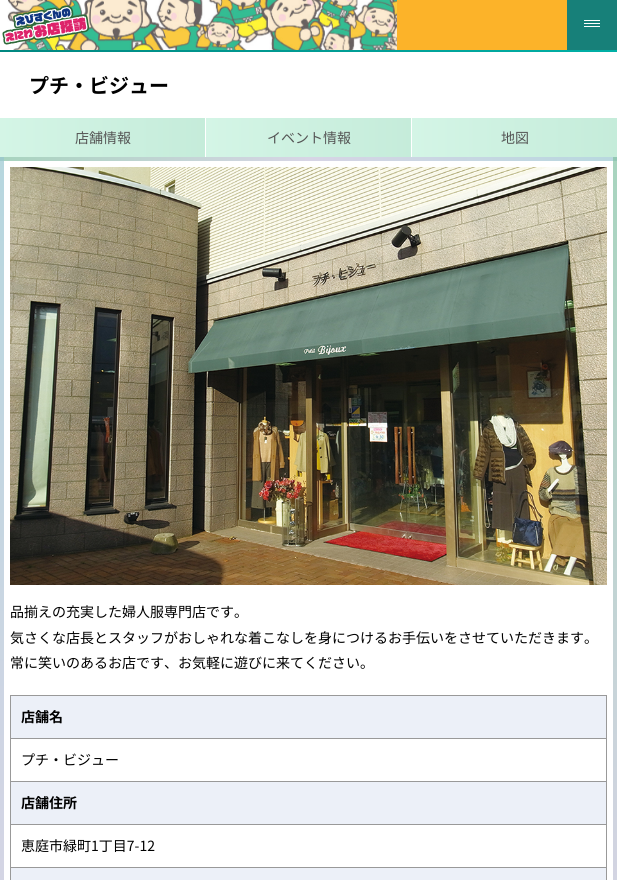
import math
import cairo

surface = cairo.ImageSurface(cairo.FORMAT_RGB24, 617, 880)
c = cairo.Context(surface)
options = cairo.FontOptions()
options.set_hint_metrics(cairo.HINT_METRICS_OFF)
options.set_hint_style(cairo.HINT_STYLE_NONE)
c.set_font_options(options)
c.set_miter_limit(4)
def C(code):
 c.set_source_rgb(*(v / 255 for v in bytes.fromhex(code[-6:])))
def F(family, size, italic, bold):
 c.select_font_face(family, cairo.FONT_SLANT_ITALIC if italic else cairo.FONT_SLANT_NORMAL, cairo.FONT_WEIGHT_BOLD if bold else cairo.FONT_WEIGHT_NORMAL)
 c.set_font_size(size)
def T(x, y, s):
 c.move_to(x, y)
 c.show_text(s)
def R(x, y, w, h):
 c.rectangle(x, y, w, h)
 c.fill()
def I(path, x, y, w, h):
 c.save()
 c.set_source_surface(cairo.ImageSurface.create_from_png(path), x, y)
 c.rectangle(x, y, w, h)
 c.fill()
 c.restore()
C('ffffff')
c.paint()
I('1.png',7,0,390,50)
I('2.png',0,50,617,2)
I('3.png',2,5,87,40)
C('fcb329')
R(397,0,170,50)
C('178079')
R(567,0,50,50)
C('ffffff')
R(584,20,16,1)
R(584,23,16,1)
R(584,26,16,1)
F('Noto Sans JP',20,0,1)
C('000000')
T(29,93,'プチ・ビジュー')
gradient = cairo.LinearGradient(0,138,205,138)
gradient.add_color_stop_rgba(0,0.831,0.961,0.902,1)
gradient.add_color_stop_rgba(1,0.773,0.925,0.855,1)
c.set_source(gradient)
R(0,118,205,39)
F('Noto Sans JP',14,0,0)
C('555555')
T(75,143,'店舗情報')
gradient = cairo.LinearGradient(206,138,411,138)
gradient.add_color_stop_rgba(0,0.831,0.961,0.902,1)
gradient.add_color_stop_rgba(1,0.773,0.925,0.855,1)
c.set_source(gradient)
R(206,118,205,39)
C('555555')
T(267,143,'イベント情報')
gradient = cairo.LinearGradient(412,138,617,138)
gradient.add_color_stop_rgba(0,0.831,0.961,0.902,1)
gradient.add_color_stop_rgba(1,0.773,0.925,0.855,1)
c.set_source(gradient)
R(412,118,205,39)
C('555555')
T(501,143,'地図')
gradient = cairo.LinearGradient(617,159,0,159)
gradient.add_color_stop_rgba(0,0.722,0.847,0.875,1)
gradient.add_color_stop_rgba(.5,0.843,0.835,0.898,1)
gradient.add_color_stop_rgba(1,0.659,0.831,0.749,1)
c.set_source(gradient)
R(0,157,617,4)
gradient = cairo.LinearGradient(2,157,2,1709)
gradient.add_color_stop_rgba(0,0.6,0.78,0.82,.7)
gradient.add_color_stop_rgba(.5,0.776,0.765,0.855,.7)
gradient.add_color_stop_rgba(1,0.514,0.761,0.639,.7)
c.set_source(gradient)
R(0,157,4,723)
I('4.png',10,167,597,418)
gradient = cairo.LinearGradient(615,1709,615,157)
gradient.add_color_stop_rgba(0,0.6,0.78,0.82,.7)
gradient.add_color_stop_rgba(.5,0.776,0.765,0.855,.7)
gradient.add_color_stop_rgba(1,0.514,0.761,0.639,.7)
c.set_source(gradient)
R(613,157,4,723)
C('000000')
T(10,617,'品揃えの充実した婦人服専門店です。')
T(10,643,'気さくな店長とスタッフがおしゃれな着こなしを身につけるお手伝いをさせていただきます。')
T(10,668,'常に笑いのあるお店です、お気軽に遊びに来てください。')
C('999999')
R(10,695,597,1)
R(10,695,1,185)
C('ecf0f8')
R(11,696,595,42)
C('999999')
R(606,696,1,184)
R(11,738,596,1)
F('Noto Sans JP',14,0,1)
C('000000')
T(21,722,'店舗名')
C('999999')
R(11,781,596,1)
F('Noto Sans JP',14,0,0)
C('000000')
T(21,765,'プチ・ビジュー')
C('ecf0f8')
R(11,782,595,42)
C('999999')
R(11,824,596,1)
F('Noto Sans JP',14,0,1)
C('000000')
T(21,808,'店舗住所')
C('999999')
R(11,867,596,1)
F('Noto Sans JP',14,0,0)
C('000000')
T(21,851,'恵庭市緑町1丁目7-12')
C('ecf0f8')
R(11,868,595,12)
surface.write_to_png('o.png')
